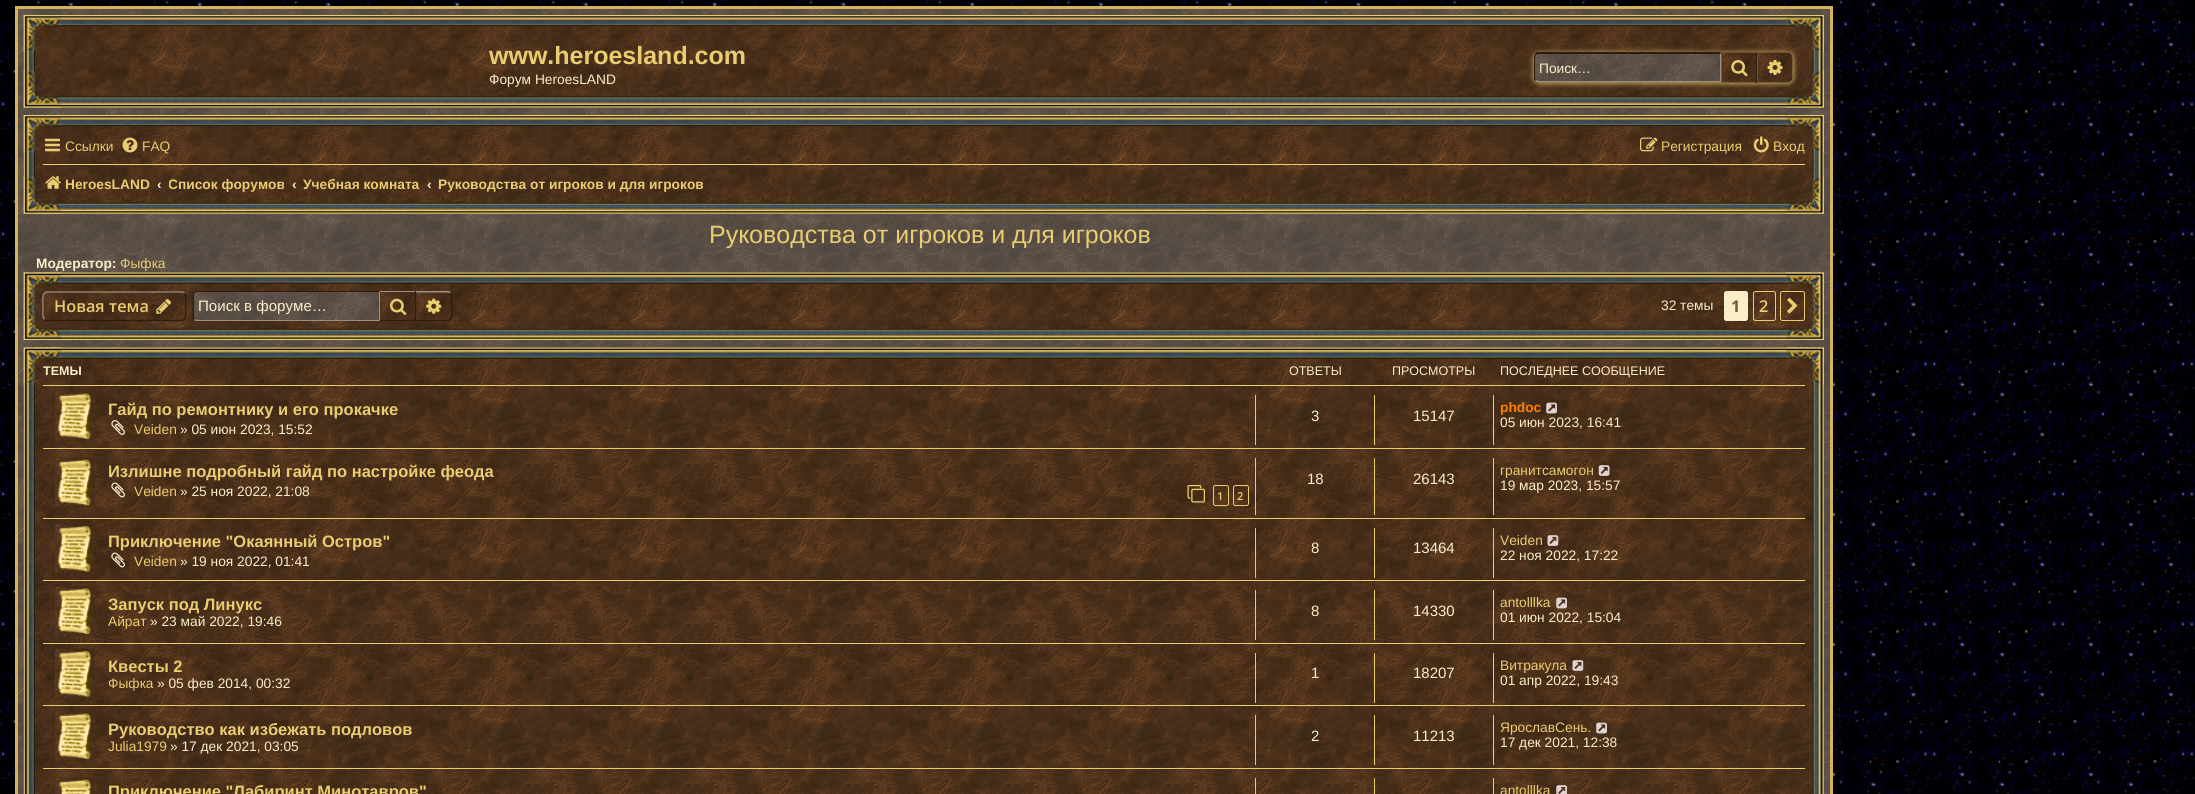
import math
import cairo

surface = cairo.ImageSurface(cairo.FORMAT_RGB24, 2195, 794)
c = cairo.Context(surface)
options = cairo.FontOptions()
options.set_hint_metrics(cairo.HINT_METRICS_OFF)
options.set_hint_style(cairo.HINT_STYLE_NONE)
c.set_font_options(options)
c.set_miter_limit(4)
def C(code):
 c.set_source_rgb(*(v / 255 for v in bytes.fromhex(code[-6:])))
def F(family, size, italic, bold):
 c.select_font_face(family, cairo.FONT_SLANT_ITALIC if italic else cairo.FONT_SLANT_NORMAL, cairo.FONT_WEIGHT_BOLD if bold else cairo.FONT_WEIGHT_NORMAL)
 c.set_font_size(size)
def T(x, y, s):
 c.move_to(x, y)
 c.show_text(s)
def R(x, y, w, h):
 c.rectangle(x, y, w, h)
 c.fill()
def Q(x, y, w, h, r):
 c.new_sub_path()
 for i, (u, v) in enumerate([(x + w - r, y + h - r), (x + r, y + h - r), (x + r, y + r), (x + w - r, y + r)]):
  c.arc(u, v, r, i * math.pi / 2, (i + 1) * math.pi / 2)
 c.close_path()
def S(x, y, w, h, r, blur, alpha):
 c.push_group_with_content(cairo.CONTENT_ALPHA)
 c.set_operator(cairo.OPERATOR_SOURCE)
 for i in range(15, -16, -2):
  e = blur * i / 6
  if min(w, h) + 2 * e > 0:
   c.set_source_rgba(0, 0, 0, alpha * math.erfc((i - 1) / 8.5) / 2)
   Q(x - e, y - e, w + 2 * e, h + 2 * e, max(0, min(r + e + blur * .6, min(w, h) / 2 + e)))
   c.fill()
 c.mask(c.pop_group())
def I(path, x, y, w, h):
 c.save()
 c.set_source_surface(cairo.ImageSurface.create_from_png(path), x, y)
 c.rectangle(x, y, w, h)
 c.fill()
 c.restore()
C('ffffff')
c.paint()
I('1.png',0,0,2195,794)
I('2.png',18,9,1812,785)
c.rectangle(16.5,7.5,1815,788)
C('d4b35a')
c.set_line_width(3)
c.stroke()
I('3.png',23,15,1801,93)
F('Liberation Sans',25,0,1)
C('e9cd71')
T(489,64,'www.heroesland.com')
F('Liberation Sans',13.75,0,0)
C('f9eec8')
T(489,84,'Форум HeroesLAND')
C('e9cd71')
S(1534,53,259,30,5,3,1)
I('4.png',1534,52,187,31)
C('2c1c0e')
c.new_path()
c.move_to(1539,54)
c.line_to(1536,55)
c.line_to(1535,54)
c.line_to(1537,52)
c.line_to(1721,52)
c.line_to(1720,54)
c.close_path()
c.fill()
C('9e8f82')
c.new_path()
c.move_to(1721,53)
c.line_to(1721,82)
c.line_to(1720,81)
c.line_to(1720,54)
c.close_path()
c.fill()
c.new_path()
c.move_to(1721,82)
c.line_to(1538,82)
c.line_to(1535,81)
c.line_to(1536,80)
c.line_to(1539,81)
c.line_to(1720,81)
c.close_path()
c.fill()
C('2c1c0e')
c.new_path()
c.move_to(1535.5,81)
c.curve_to(1534.5,80,1534,79,1534,78)
c.line_to(1534,58)
c.curve_to(1534,56.5,1534.5,55,1535.5,54)
c.line_to(1536,55)
c.curve_to(1535.5,55.5,1535,56.5,1535,58)
c.line_to(1535,78)
c.curve_to(1535,79,1535.5,79.5,1536,80)
c.close_path()
c.fill()
C('f9eec8')
T(1539,73,'Поиск…')
I('5.png',1721,52,37,31)
C('2c1c0e')
R(1756,53,1,30)
I('6.png',1731,60,17,17)
I('7.png',1757,52,36,31)
I('8.png',1767,60,16,15)
I('9.png',23,115,1801,99)
I('10.png',45,138,15,14)
C('e9cd71')
T(65,151,'Ссылки')
I('11.png',122,137,16,16)
T(142,151,'FAQ')
I('12.png',1640,137,18,15)
T(1661,151,'Регистрация')
I('13.png',1753,136,16,17)
T(1773,151,'Вход')
R(43,164,1762,1)
I('14.png',45,176,16,13)
F('Liberation Sans',13.75,0,1)
T(65,189,'HeroesLAND')
C('f9eec8')
T(157,189,'‹')
c.save()
c.rectangle(169,169,116,30)
c.clip()
C('e9cd71')
T(168,189,'Список форумов')
c.restore()
T(292,189,'‹')
C('e9cd71')
T(303,189,'Учебная комната')
C('f9eec8')
T(427,189,'‹')
C('e9cd71')
T(438,189,'Руководства от игроков и для игроков')
F('Liberation Sans',25,0,0)
T(709,243,'Руководства от игроков и для игроков')
F('Liberation Sans',13.75,0,1)
C('f9eec8')
T(36,268,'Модератор:')
F('Liberation Sans',13.75,0,0)
C('e9cd71')
T(120,268,'Фыфка')
I('15.png',23,272,1801,68)
I('16.png',42,291,144,30)
c.new_path()
c.move_to(184.5,293)
c.curve_to(187,295.5,185.5,303,185.5,306)
c.curve_to(185.5,310,188,320.5,181,320.5)
c.line_to(46,320.5)
c.line_to(44.5,319.5)
C('2c1c0e')
c.set_line_width(1.2)
c.stroke()
c.new_path()
c.move_to(44.5,319.5)
c.curve_to(42,317,43,309.5,43,306)
c.curve_to(43,302.5,41,292,47.5,292)
c.line_to(183,292)
c.line_to(184.5,293)
C('9e8f82')
c.stroke()
F('Open Sans SemiBold',16.25,0,0)
C('e9cd71')
T(54,312,'Новая тема')
I('17.png',156,299,15,15)
I('18.png',192,291,188,30)
C('2c1c0e')
c.new_path()
c.move_to(198,292)
c.curve_to(196,292,195,293,195,293)
c.line_to(194,292)
c.line_to(196,291)
c.line_to(380,291)
c.line_to(379,292)
c.close_path()
c.fill()
C('9e8f82')
c.new_path()
c.move_to(380,291)
c.line_to(379,292)
c.line_to(379,320)
c.line_to(380,321)
c.close_path()
c.fill()
c.new_path()
c.move_to(380,321)
c.line_to(198,321)
c.curve_to(197,321,195,321,194,320)
c.line_to(195,319)
c.curve_to(196,320,197,320,198,320)
c.line_to(379,320)
c.close_path()
c.fill()
C('2c1c0e')
c.new_path()
c.move_to(192.5,294)
c.line_to(193.5,292.5)
c.line_to(194.5,293.5)
c.curve_to(194,294,194,295,194,296)
c.line_to(194,316)
c.curve_to(194,317,194.5,318,195,319)
c.line_to(194,319.5)
c.line_to(192.5,318)
c.close_path()
c.fill()
F('Liberation Sans',15.1,0,0)
C('f9eec8')
T(198,311,'Поиск в форуме…')
I('19.png',380,292,36,30)
C('9e8f82')
R(380,291,36,1)
C('2c1c0e')
R(415,291,1,30)
R(380,320,36,1)
I('20.png',390,298,17,17)
I('21.png',416,291,36,30)
C('9e8f82')
c.new_path()
c.move_to(416,291)
c.line_to(449,291)
c.line_to(451,292.5)
c.line_to(450,293.5)
c.curve_to(449.5,293,448.5,292.5,447.5,292.5)
c.line_to(416,292.5)
c.close_path()
c.fill()
C('2c1c0e')
c.new_path()
c.move_to(450,319)
c.curve_to(450.5,318,451,317,451,316)
c.line_to(451,296)
c.curve_to(451,295,450.5,294,450,293.5)
c.line_to(451,292.5)
c.curve_to(452,293.5,452.5,295,452.5,296)
c.line_to(452.5,316)
c.curve_to(452.5,317.5,452,319,451,319.5)
c.close_path()
c.fill()
c.new_path()
c.move_to(416,320)
c.line_to(447.5,320)
c.curve_to(448.5,320,449.5,319.5,450,319)
c.line_to(451,319.5)
c.curve_to(450,320.5,449,321,447.5,321)
c.line_to(416,321)
c.close_path()
c.fill()
I('22.png',426,298,16,16)
F('Liberation Sans',13.75,0,0)
C('f9eec8')
T(1661,310,'32 темы')
Q(1724.5,291.5,23,29,2)
c.fill_preserve()
c.set_line_width(1)
c.stroke()
F('Open Sans',16.25,0,1)
C('685f3c')
T(1731,312,'1')
Q(1753.5,291.5,22,29,2)
C('e9cd71')
c.stroke()
F('Open Sans SemiBold',16.25,0,0)
T(1759,312,'2')
Q(1780.5,291.5,24,29,2)
c.stroke()
I('23.png',1787,297,11,17)
I('24.png',23,347,1801,447)
F('Liberation Sans',12.5,0,1)
C('f9eec8')
T(43,375,'ТЕМЫ')
F('Liberation Sans',12.5,0,0)
T(1289,375,'ОТВЕТЫ')
T(1392,375,'ПРОСМОТРЫ')
T(1500,375,'ПОСЛЕДНЕЕ СООБЩЕНИЕ')
C('e9cd71')
R(43,385,1762,1)
I('25.png',55,391,40,51)
F('Liberation Sans',16.5,0,1)
T(108,415,'Гайд по ремонтнику и его прокачке')
I('26.png',111,420,14,15)
F('Liberation Sans',13.75,0,0)
T(134,434,'Veiden')
C('f9eec8')
T(180,434,'» 05 июн 2023, 15:52')
C('e9cd71')
R(1255,395,1,50)
F('Liberation Sans',15,0,0)
C('f9eec8')
T(1311,421,'3')
C('e9cd71')
R(1374,395,1,50)
C('f9eec8')
T(1413,421,'15147')
C('e9cd71')
R(1493,395,1,50)
F('Liberation Sans',13.75,0,1)
C('ff7e00')
T(1500,412,'phdoc')
I('27.png',1546,402,11,12)
F('Liberation Sans',13.75,0,0)
C('f9eec8')
T(1500,427,'05 июн 2023, 16:41')
C('e9cd71')
R(43,448,1762,1)
I('28.png',55,457,40,51)
F('Liberation Sans',16.5,0,1)
T(108,477,'Излишне подробный гайд по настройке феода')
I('29.png',111,482,14,16)
F('Liberation Sans',13.75,0,0)
T(134,496,'Veiden')
C('f9eec8')
T(180,496,'» 25 ноя 2022, 21:08')
I('30.png',1187,485,18,18)
Q(1213.5,485.5,15,20,2)
C('e9cd71')
c.stroke()
F('Open Sans SemiBold',11,0,0)
T(1217,500,'1')
Q(1233.5,485.5,15,20,2)
c.stroke()
T(1237,500,'2')
R(1255,458,1,57)
F('Liberation Sans',15,0,0)
C('f9eec8')
T(1307,484,'18')
C('e9cd71')
R(1374,458,1,57)
C('f9eec8')
T(1413,484,'26143')
C('e9cd71')
R(1493,458,1,57)
F('Liberation Sans',13.75,0,0)
T(1500,475,'гранитсамогон')
I('31.png',1598,465,12,11)
C('f9eec8')
T(1500,490,'19 мар 2023, 15:57')
C('e9cd71')
R(43,518,1762,1)
I('32.png',55,523,40,51)
F('Liberation Sans',16.5,0,1)
T(108,547,'Приключение "Окаянный Остров"')
I('33.png',111,552,14,16)
F('Liberation Sans',13.75,0,0)
T(134,566,'Veiden')
C('f9eec8')
T(180,566,'» 19 ноя 2022, 01:41')
C('e9cd71')
R(1255,528,1,50)
F('Liberation Sans',15,0,0)
C('f9eec8')
T(1311,553,'8')
C('e9cd71')
R(1374,528,1,50)
C('f9eec8')
T(1413,553,'13464')
C('e9cd71')
R(1493,528,1,50)
F('Liberation Sans',13.75,0,0)
T(1500,545,'Veiden')
I('34.png',1547,535,12,11)
C('f9eec8')
T(1500,560,'22 ноя 2022, 17:22')
C('e9cd71')
R(43,580,1762,1)
I('35.png',55,586,40,51)
F('Liberation Sans',16.5,0,1)
T(108,610,'Запуск под Линукс')
F('Liberation Sans',13.75,0,0)
T(108,626,'Айрат')
C('f9eec8')
T(150,626,'» 23 май 2022, 19:46')
C('e9cd71')
R(1255,590,1,50)
F('Liberation Sans',15,0,0)
C('f9eec8')
T(1311,616,'8')
C('e9cd71')
R(1374,590,1,50)
C('f9eec8')
T(1413,616,'14330')
C('e9cd71')
R(1493,590,1,50)
F('Liberation Sans',13.75,0,0)
T(1500,607,'antolllka')
I('36.png',1556,597,11,12)
C('f9eec8')
T(1500,622,'01 июн 2022, 15:04')
C('e9cd71')
R(43,643,1762,1)
I('37.png',55,648,40,51)
F('Liberation Sans',16.5,0,1)
T(108,672,'Квесты 2')
F('Liberation Sans',13.75,0,0)
T(108,688,'Фыфка')
C('f9eec8')
T(157,688,'» 05 фев 2014, 00:32')
C('e9cd71')
R(1255,653,1,50)
F('Liberation Sans',15,0,0)
C('f9eec8')
T(1311,678,'1')
C('e9cd71')
R(1374,653,1,50)
C('f9eec8')
T(1413,678,'18207')
C('e9cd71')
R(1493,653,1,50)
F('Liberation Sans',13.75,0,0)
T(1500,670,'Витракула')
I('38.png',1572,660,12,11)
C('f9eec8')
T(1500,685,'01 апр 2022, 19:43')
C('e9cd71')
R(43,705,1762,1)
I('25.png',55,711,40,51)
F('Liberation Sans',16.5,0,1)
T(108,735,'Руководство как избежать подловов')
F('Liberation Sans',13.75,0,0)
T(108,751,'Julia1979')
C('f9eec8')
T(170,751,'» 17 дек 2021, 03:05')
C('e9cd71')
R(1255,715,1,50)
F('Liberation Sans',15,0,0)
C('f9eec8')
T(1311,741,'2')
C('e9cd71')
R(1374,715,1,50)
C('f9eec8')
T(1413,741,'11213')
C('e9cd71')
R(1493,715,1,50)
F('Liberation Sans',13.75,0,0)
T(1500,732,'ЯрославСень.')
I('39.png',1596,722,11,12)
C('f9eec8')
T(1500,747,'17 дек 2021, 12:38')
C('e9cd71')
R(43,768,1762,1)
I('40.png',55,777,40,17)
F('Liberation Sans',16.5,0,1)
T(108,797,'Приключение "Лабиринт Минотавров"')
R(1255,778,1,16)
R(1374,778,1,16)
R(1493,778,1,16)
F('Liberation Sans',13.75,0,0)
T(1500,795,'antolllka')
I('41.png',1556,785,11,9)
surface.write_to_png('o.png')
